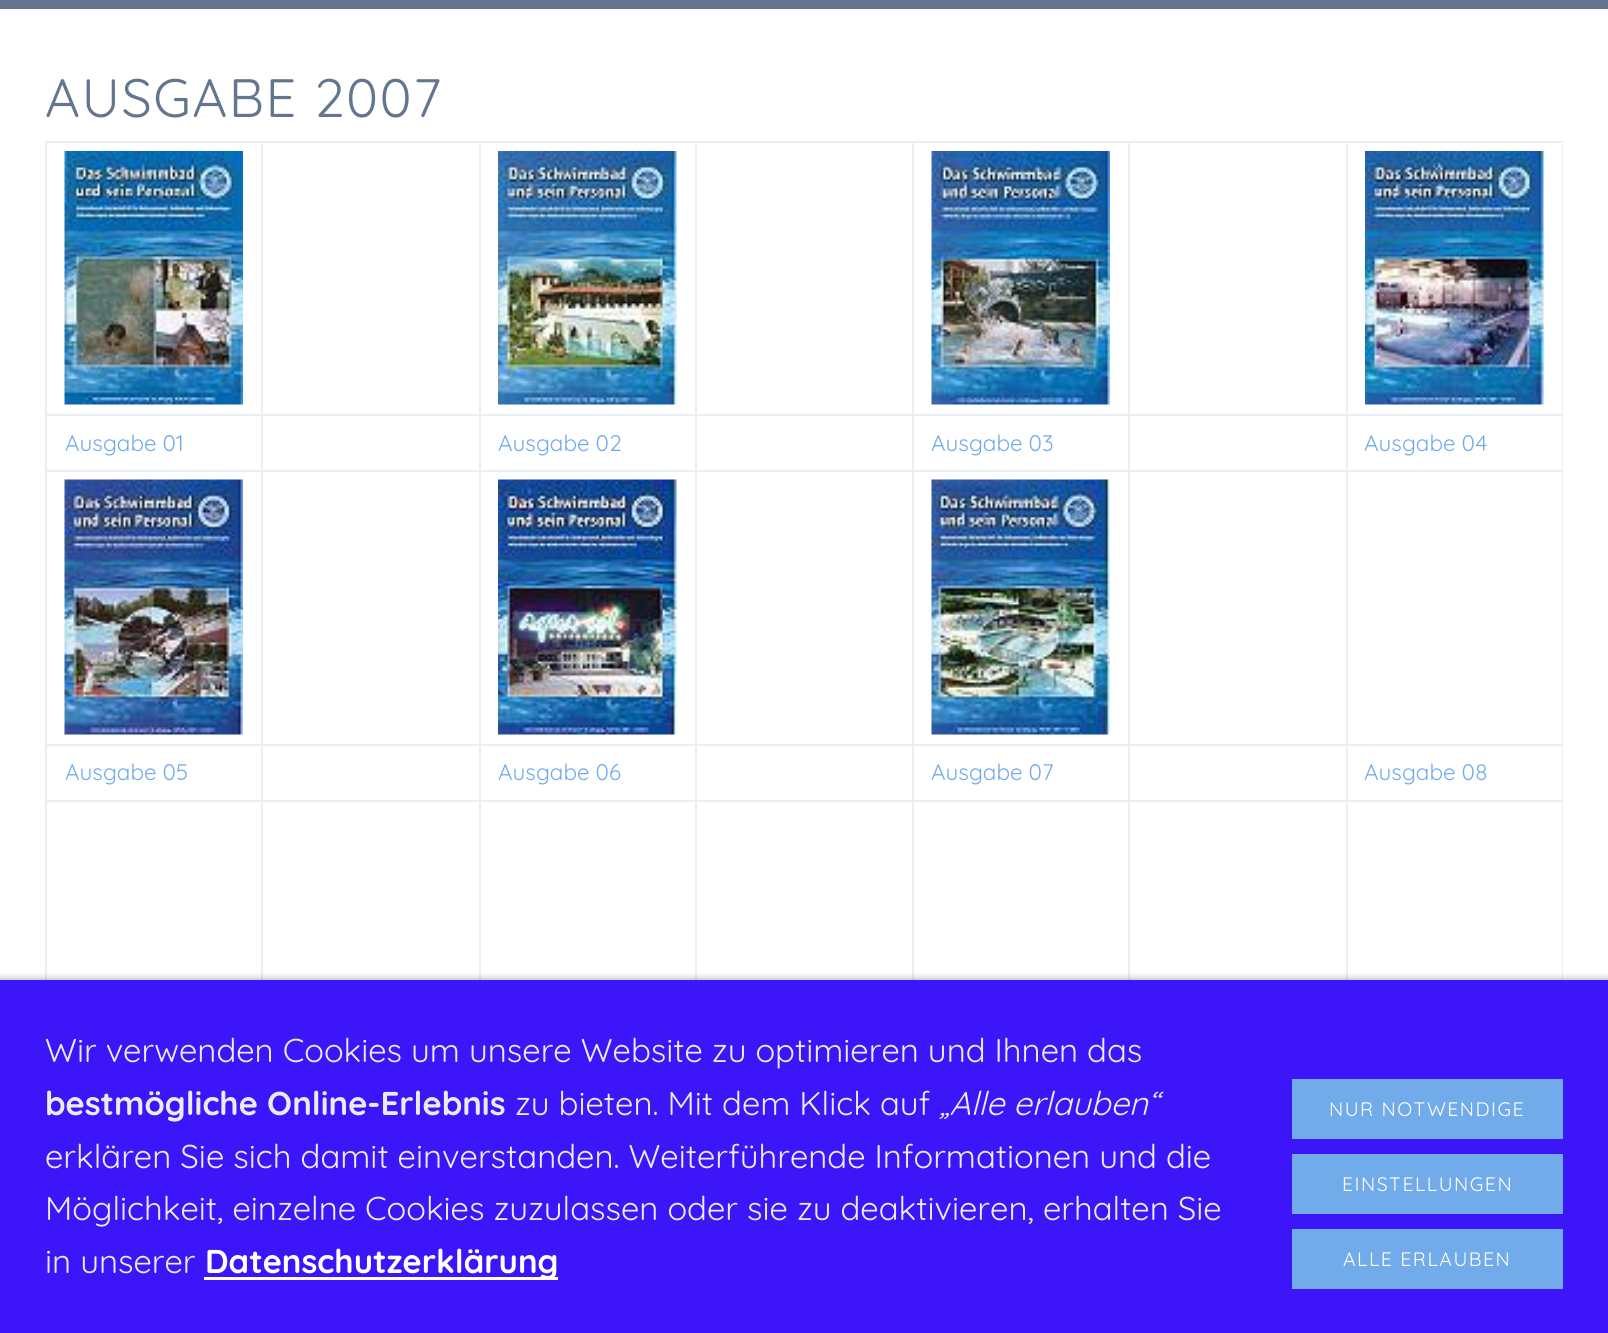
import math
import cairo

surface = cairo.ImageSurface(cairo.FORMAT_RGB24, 1608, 1333)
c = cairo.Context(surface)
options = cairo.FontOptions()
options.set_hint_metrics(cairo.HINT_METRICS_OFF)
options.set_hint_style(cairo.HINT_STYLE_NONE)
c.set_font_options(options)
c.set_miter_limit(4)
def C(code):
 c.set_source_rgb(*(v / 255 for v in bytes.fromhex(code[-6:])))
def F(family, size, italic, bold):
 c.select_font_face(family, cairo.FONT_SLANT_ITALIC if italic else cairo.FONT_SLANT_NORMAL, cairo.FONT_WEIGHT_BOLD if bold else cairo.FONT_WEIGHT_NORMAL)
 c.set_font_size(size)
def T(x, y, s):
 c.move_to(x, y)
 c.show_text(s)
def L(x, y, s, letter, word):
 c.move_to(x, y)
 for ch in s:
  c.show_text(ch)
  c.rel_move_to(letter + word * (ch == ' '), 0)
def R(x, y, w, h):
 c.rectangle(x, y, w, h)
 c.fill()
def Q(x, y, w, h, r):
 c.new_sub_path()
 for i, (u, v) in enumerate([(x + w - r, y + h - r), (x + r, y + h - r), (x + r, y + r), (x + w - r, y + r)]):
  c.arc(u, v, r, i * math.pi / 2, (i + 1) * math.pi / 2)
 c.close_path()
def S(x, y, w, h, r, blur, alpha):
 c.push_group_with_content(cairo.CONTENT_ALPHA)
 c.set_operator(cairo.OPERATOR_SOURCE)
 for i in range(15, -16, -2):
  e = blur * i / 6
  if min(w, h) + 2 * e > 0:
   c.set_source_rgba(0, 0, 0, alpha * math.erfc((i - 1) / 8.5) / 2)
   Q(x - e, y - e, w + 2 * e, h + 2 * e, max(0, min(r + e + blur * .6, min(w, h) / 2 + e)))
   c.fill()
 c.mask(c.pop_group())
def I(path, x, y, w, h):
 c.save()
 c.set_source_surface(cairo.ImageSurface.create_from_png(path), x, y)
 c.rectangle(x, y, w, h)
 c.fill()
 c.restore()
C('ffffff')
c.paint()
C('62778f')
R(0,0,1608,9)
F('Quicksand Light',54,0,0)
L(45,117,'AUSGABE 2007',1.5,0)
C('ebeff3')
R(1346,141,217,2)
R(1346,414,217,2)
R(1346,470,217,2)
R(1346,744,217,2)
R(1346,800,217,2)
R(1346,800,2,180)
R(1128,800,219,2)
R(1346,744,2,57)
R(1128,744,219,2)
R(1346,470,2,276)
R(1128,470,219,2)
R(1346,414,2,57)
R(1128,414,219,2)
R(1346,141,2,275)
R(1128,141,219,2)
R(1128,800,2,180)
R(912,800,218,2)
R(1128,744,2,57)
R(912,744,218,2)
R(1128,470,2,276)
R(912,470,218,2)
R(1128,414,2,57)
R(912,414,218,2)
R(1128,141,2,275)
R(912,141,218,2)
R(912,800,2,180)
R(695,800,219,2)
R(912,744,2,57)
R(695,744,219,2)
R(912,470,2,276)
R(695,470,219,2)
R(912,414,2,57)
R(695,414,219,2)
R(912,141,2,275)
R(695,141,219,2)
R(695,800,2,180)
R(479,800,217,2)
R(695,744,2,57)
R(479,744,217,2)
R(695,470,2,276)
R(479,470,217,2)
R(695,414,2,57)
R(479,414,217,2)
R(695,141,2,275)
R(479,141,217,2)
R(479,800,2,180)
R(261,800,219,2)
R(479,744,2,57)
R(261,744,219,2)
R(479,470,2,276)
R(261,470,219,2)
R(479,414,2,57)
R(261,414,219,2)
R(479,141,2,275)
R(261,141,219,2)
R(261,800,2,180)
R(45,800,218,2)
R(261,744,2,57)
R(45,744,218,2)
R(261,470,2,276)
R(45,470,218,2)
R(261,414,2,57)
R(45,414,218,2)
R(261,141,2,275)
R(45,141,218,2)
R(45,800,2,180)
R(45,744,2,57)
R(45,470,2,276)
R(45,414,2,57)
R(45,141,2,275)
I('1.png',64,151,179,254)
I('2.png',498,151,179,254)
I('3.png',931,151,179,254)
R(1562,800,1,180)
R(1562,744,1,57)
R(1562,470,1,276)
R(1562,414,1,57)
R(1562,141,1,275)
I('4.png',1365,151,179,254)
F('Quicksand Light',22.5,0,0)
C('72abea')
T(65,451,'Ausgabe 01')
T(498,451,'Ausgabe 02')
T(931,451,'Ausgabe 03')
T(1364,451,'Ausgabe 04')
I('5.png',64,479,179,256)
I('6.png',498,479,179,256)
I('7.png',931,479,179,256)
T(65,780,'Ausgabe 05')
T(498,780,'Ausgabe 06')
T(931,780,'Ausgabe 07')
T(1364,780,'Ausgabe 08')
C('000000')
S(0,980,1608,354,0,4,.4)
C('3c15f9')
R(0,980,1608,353)
F('Quicksand Light',33,0,0)
C('ebebeb')
T(45,1062,'Wir verwenden Cookies um unsere Website zu optimieren und Ihnen das')
F('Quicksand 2 Light',33,0,0)
T(45,1115,'bestmögliche Online-Erlebnis')
F('Quicksand Light',33,0,0)
T(515,1115,'zu bieten. Mit dem Klick auf')
F('Quicksand Light',33,1,0)
T(939,1115,'„Alle erlauben“')
F('Quicksand Light',33,0,0)
T(45,1168,'erklären Sie sich damit einverstanden. Weiterführende Informationen und die')
T(45,1220,'Möglichkeit, einzelne Cookies zuzulassen oder sie zu deaktivieren, erhalten Sie')
T(45,1273,'in unserer')
C('ffffff')
R(204,1277,354,3)
F('Quicksand 2 Light',33,0,0)
T(205,1273,'Datenschutzerklärung')
C('72abea')
R(1292,1079,271,60)
F('Quicksand Light',19.5,0,0)
C('ffffff')
L(1329,1116,'NUR NOTWENDIGE',1.5,0)
C('72abea')
R(1292,1154,271,60)
C('ffffff')
L(1342,1191,'EINSTELLUNGEN',1.5,0)
C('72abea')
R(1292,1229,271,60)
C('ffffff')
L(1343,1266,'ALLE ERLAUBEN',1.5,0)
surface.write_to_png('o.png')
